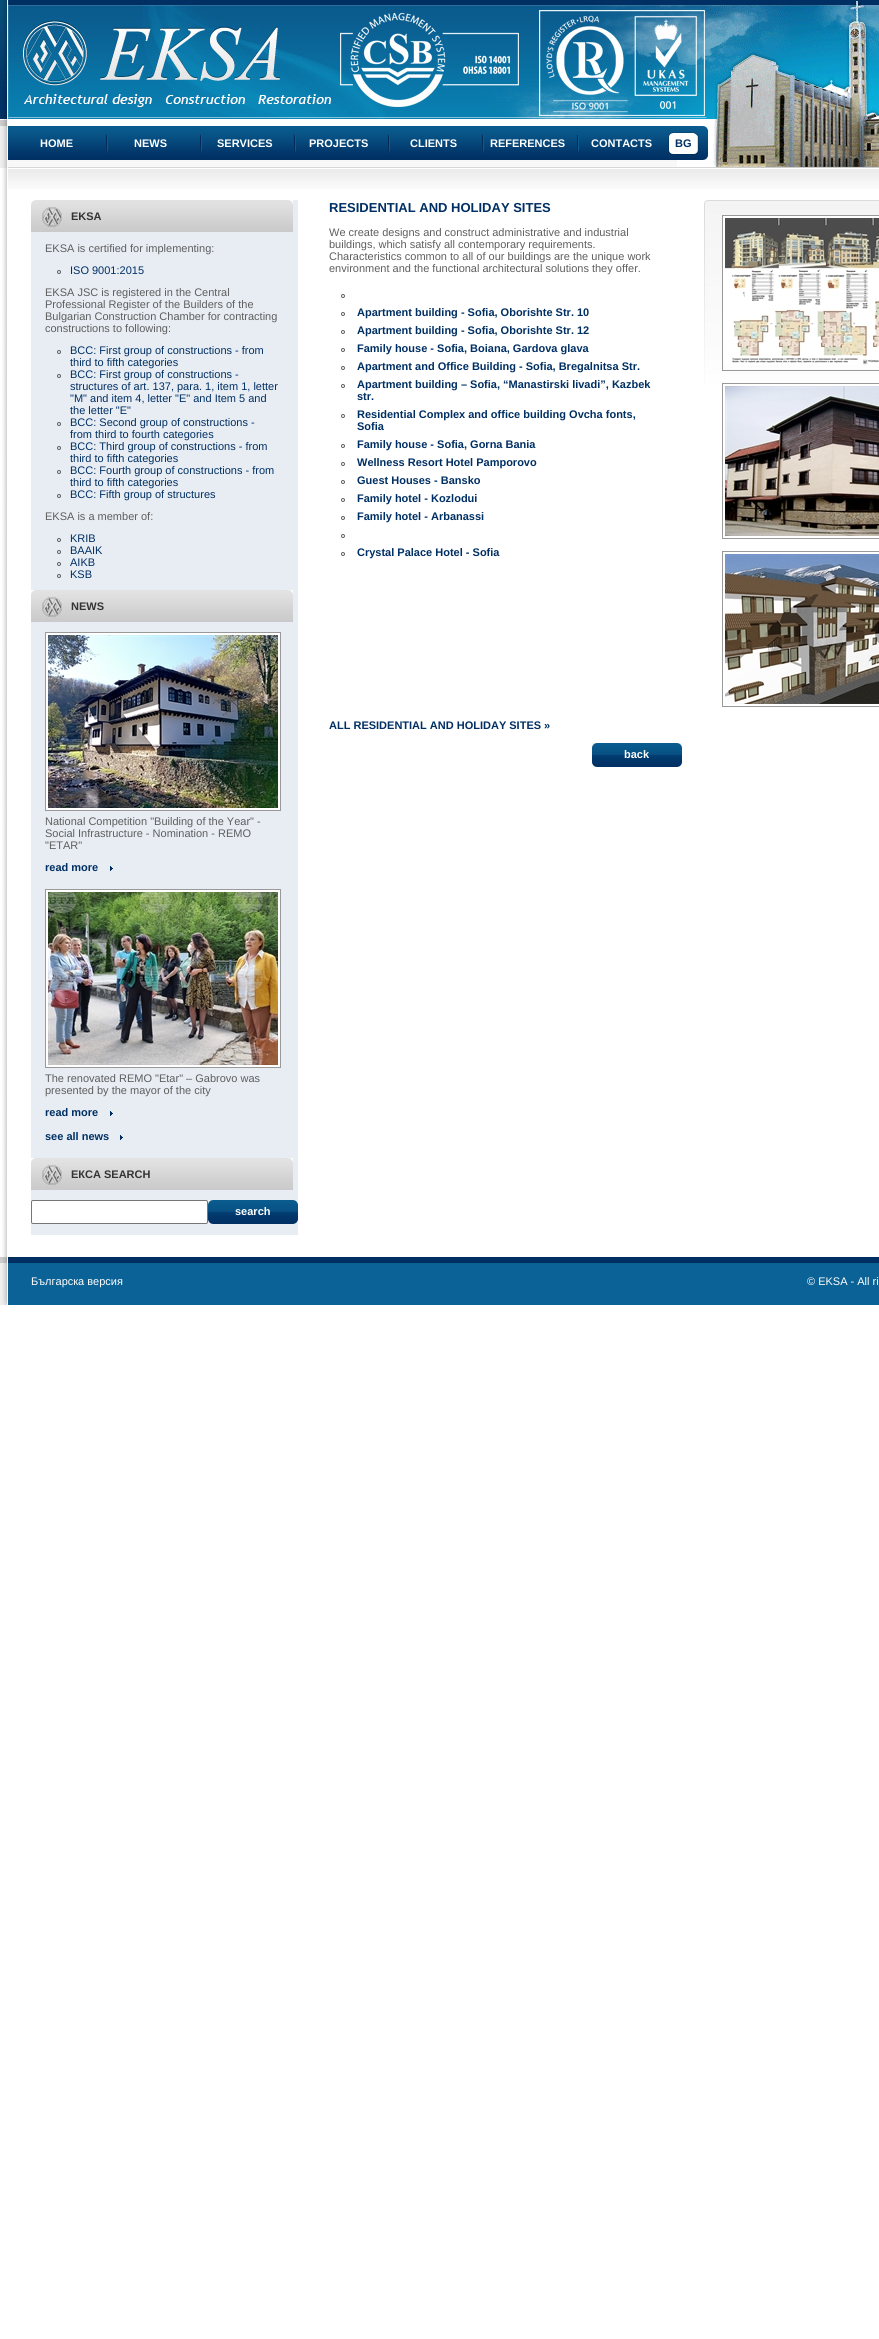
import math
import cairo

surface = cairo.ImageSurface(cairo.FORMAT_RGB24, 879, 2339)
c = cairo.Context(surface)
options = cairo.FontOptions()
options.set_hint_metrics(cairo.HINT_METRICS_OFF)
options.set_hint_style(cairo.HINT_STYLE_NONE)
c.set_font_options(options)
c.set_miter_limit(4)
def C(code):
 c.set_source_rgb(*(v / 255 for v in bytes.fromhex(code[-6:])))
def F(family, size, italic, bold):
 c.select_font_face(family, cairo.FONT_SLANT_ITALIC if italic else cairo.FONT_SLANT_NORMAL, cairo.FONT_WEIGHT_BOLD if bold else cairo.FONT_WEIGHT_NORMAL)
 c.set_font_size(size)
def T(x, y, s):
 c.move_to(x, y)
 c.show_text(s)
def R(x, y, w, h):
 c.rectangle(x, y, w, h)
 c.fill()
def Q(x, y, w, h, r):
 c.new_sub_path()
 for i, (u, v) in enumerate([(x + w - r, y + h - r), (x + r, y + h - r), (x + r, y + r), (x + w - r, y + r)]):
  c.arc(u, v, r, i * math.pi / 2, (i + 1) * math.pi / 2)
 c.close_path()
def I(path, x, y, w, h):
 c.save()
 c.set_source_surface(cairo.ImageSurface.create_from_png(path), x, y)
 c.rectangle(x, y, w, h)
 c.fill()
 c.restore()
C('ffffff')
c.paint()
I('1.png',0,0,8,168)
I('2.png',8,0,701,126)
I('3.png',8,126,693,34)
F('Liberation Sans',11,0,1)
C('ffffff')
T(40,147,'HOME')
I('4.png',104,134,6,22)
T(134,147,'NEWS')
I('4.png',198,134,6,22)
T(217,147,'SERVICES')
I('4.png',292,134,6,22)
T(309,147,'PROJECTS')
I('4.png',386,134,6,22)
T(410,147,'CLIENTS')
I('4.png',480,134,6,22)
T(490,147,'REFERENCES')
I('4.png',575,134,6,22)
T(591,147,'CONTACTS')
I('5.png',668,126,31,32)
C('002f63')
T(675,147,'BG')
I('6.png',701,126,8,34)
I('7.png',8,160,701,8)
I('8.png',709,0,170,168)
I('9.png',2,168,5,1089)
I('10.png',8,169,871,20)
C('e7edf3')
R(31,200,267,1035)
I('11.png',31,200,262,32)
C('333333')
T(71,220,'EKSA')
F('Liberation Sans',11,0,0)
C('5e5e5e')
T(45,252,'EKSA is certified for implementing:')
c.new_path()
c.arc(59,272,1.5,0,2 * math.pi)
c.set_line_width(1)
c.stroke()
C('002f63')
T(70,274,'ISO 9001:2015')
C('5e5e5e')
T(45,296,'EKSA JSC is registered in the Central')
T(45,308,'Professional Register of the Builders of the')
T(45,320,'Bulgarian Construction Chamber for contracting')
T(45,332,'constructions to following:')
c.new_path()
c.arc(59,352,1.5,0,2 * math.pi)
c.stroke()
C('002f63')
T(70,354,'BCC: First group of constructions - from')
T(70,366,'third to fifth categories')
c.new_path()
c.arc(59,376,1.5,0,2 * math.pi)
C('5e5e5e')
c.stroke()
C('002f63')
T(70,378,'BCC: First group of constructions -')
T(70,390,'structures of art. 137, para. 1, item 1, letter')
T(70,402,'"M" and item 4, letter "E" and Item 5 and')
T(70,414,'the letter "E"')
c.new_path()
c.arc(59,424,1.5,0,2 * math.pi)
C('5e5e5e')
c.stroke()
C('002f63')
T(70,426,'BCC: Second group of constructions -')
T(70,438,'from third to fourth categories')
c.new_path()
c.arc(59,448,1.5,0,2 * math.pi)
C('5e5e5e')
c.stroke()
C('002f63')
T(70,450,'BCC: Third group of constructions - from')
T(70,462,'third to fifth categories')
c.new_path()
c.arc(59,472,1.5,0,2 * math.pi)
C('5e5e5e')
c.stroke()
C('002f63')
T(70,474,'BCC: Fourth group of constructions - from')
T(70,486,'third to fifth categories')
c.new_path()
c.arc(59,496,1.5,0,2 * math.pi)
C('5e5e5e')
c.stroke()
C('002f63')
T(70,498,'BCC: Fifth group of structures')
C('5e5e5e')
T(45,520,'EKSA is a member of:')
c.new_path()
c.arc(59,540,1.5,0,2 * math.pi)
c.stroke()
C('002f63')
T(70,542,'KRIB')
c.new_path()
c.arc(59,552,1.5,0,2 * math.pi)
C('5e5e5e')
c.stroke()
C('002f63')
T(70,554,'BAAIK')
c.new_path()
c.arc(59,564,1.5,0,2 * math.pi)
C('5e5e5e')
c.stroke()
C('002f63')
T(70,566,'AIKB')
c.new_path()
c.arc(59,576,1.5,0,2 * math.pi)
C('5e5e5e')
c.stroke()
C('002f63')
T(70,578,'KSB')
I('11.png',31,590,262,32)
F('Liberation Sans',11,0,1)
C('333333')
T(71,610,'NEWS')
C('ffffff')
c.rectangle(45.5,632.5,235,178)
c.fill_preserve()
C('999999')
c.stroke()
I('12.png',48,635,230,173)
F('Liberation Sans',11,0,0)
C('5e5e5e')
T(45,825,'National Competition "Building of the Year" -')
T(45,837,'Social Infrastructure - Nomination - REMO')
T(45,849,'"ETAR"')
I('13.png',107,863,8,8)
F('Liberation Sans',11,0,1)
C('002f63')
T(45,871,'read more')
C('ffffff')
c.rectangle(45.5,889.5,235,178)
c.fill_preserve()
C('999999')
c.stroke()
I('14.png',48,892,230,173)
F('Liberation Sans',11,0,0)
C('5e5e5e')
T(45,1082,'The renovated REMO "Etar" – Gabrovo was')
T(45,1094,'presented by the mayor of the city')
I('13.png',107,1108,8,8)
F('Liberation Sans',11,0,1)
C('002f63')
T(45,1116,'read more')
I('13.png',117,1132,8,8)
T(45,1140,'see all news')
I('11.png',31,1158,262,32)
C('333333')
T(71,1178,'ЕКСА SEARCH')
C('ffffff')
Q(31.5,1200.5,176,23,1.5)
c.fill_preserve()
C('767676')
c.stroke()
I('15.png',208,1200,90,24)
C('ffffff')
T(235,1215,'search')
F('Liberation Sans',13,0,1)
C('002f63')
T(329,212,'RESIDENTIAL AND HOLIDAY SITES')
F('Liberation Sans',11,0,0)
C('5e5e5e')
T(329,236,'We create designs and construct administrative and industrial')
T(329,248,'buildings, which satisfy all contemporary requirements.')
T(329,260,'Characteristics common to all of our buildings are the unique work')
T(329,272,'environment and the functional architectural solutions they offer.')
c.new_path()
c.arc(343,296,1.5,0,2 * math.pi)
c.stroke()
c.arc(343,314,1.5,0,2 * math.pi)
c.stroke()
F('Liberation Sans',11,0,1)
C('002f63')
T(357,316,'Apartment building - Sofia, Oborishte Str. 10')
c.new_path()
c.arc(343,332,1.5,0,2 * math.pi)
C('5e5e5e')
c.stroke()
C('002f63')
T(357,334,'Apartment building - Sofia, Oborishte Str. 12')
c.new_path()
c.arc(343,350,1.5,0,2 * math.pi)
C('5e5e5e')
c.stroke()
C('002f63')
T(357,352,'Family house - Sofia, Boiana, Gardova glava')
c.new_path()
c.arc(343,368,1.5,0,2 * math.pi)
C('5e5e5e')
c.stroke()
C('002f63')
T(357,370,'Apartment and Office Building - Sofia, Bregalnitsa Str.')
c.new_path()
c.arc(343,386,1.5,0,2 * math.pi)
C('5e5e5e')
c.stroke()
C('002f63')
T(357,388,'Apartment building – Sofia, “Manastirski livadi”, Kazbek')
T(357,400,'str.')
c.new_path()
c.arc(343,416,1.5,0,2 * math.pi)
C('5e5e5e')
c.stroke()
C('002f63')
T(357,418,'Residential Complex and office building Ovcha fonts,')
T(357,430,'Sofia')
c.new_path()
c.arc(343,446,1.5,0,2 * math.pi)
C('5e5e5e')
c.stroke()
C('002f63')
T(357,448,'Family house - Sofia, Gorna Bania')
c.new_path()
c.arc(343,464,1.5,0,2 * math.pi)
C('5e5e5e')
c.stroke()
C('002f63')
T(357,466,'Wellness Resort Hotel Pamporovo')
c.new_path()
c.arc(343,482,1.5,0,2 * math.pi)
C('5e5e5e')
c.stroke()
C('002f63')
T(357,484,'Guest Houses - Bansko')
c.new_path()
c.arc(343,500,1.5,0,2 * math.pi)
C('5e5e5e')
c.stroke()
C('002f63')
T(357,502,'Family hotel - Kozlodui')
c.new_path()
c.arc(343,518,1.5,0,2 * math.pi)
C('5e5e5e')
c.stroke()
C('002f63')
T(357,520,'Family hotel - Arbanassi')
c.new_path()
c.arc(343,536,1.5,0,2 * math.pi)
C('5e5e5e')
c.stroke()
c.arc(343,554,1.5,0,2 * math.pi)
c.stroke()
C('002f63')
T(357,556,'Crystal Palace Hotel - Sofia')
I('16.png',704,200,175,184)
C('ffffff')
R(723,216,156,144)
c.rectangle(722.5,215.5,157,155)
C('999999')
c.stroke()
I('17.png',725,218,154,147)
c.rectangle(722.5,383.5,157,155)
c.stroke()
I('18.png',725,386,154,150)
c.rectangle(722.5,551.5,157,155)
c.stroke()
I('19.png',725,554,154,150)
C('002f63')
T(329,729,'ALL RESIDENTIAL AND HOLIDAY SITES »')
I('20.png',592,743,90,24)
C('ffffff')
T(624,758,'back')
I('21.png',0,1257,2,48)
I('22.png',2,1257,6,48)
I('23.png',8,1257,871,48)
F('Liberation Sans',11,0,0)
T(31,1285,'Българска версия')
T(807,1285,'© EKSA - All ri')
surface.write_to_png('o.png')
